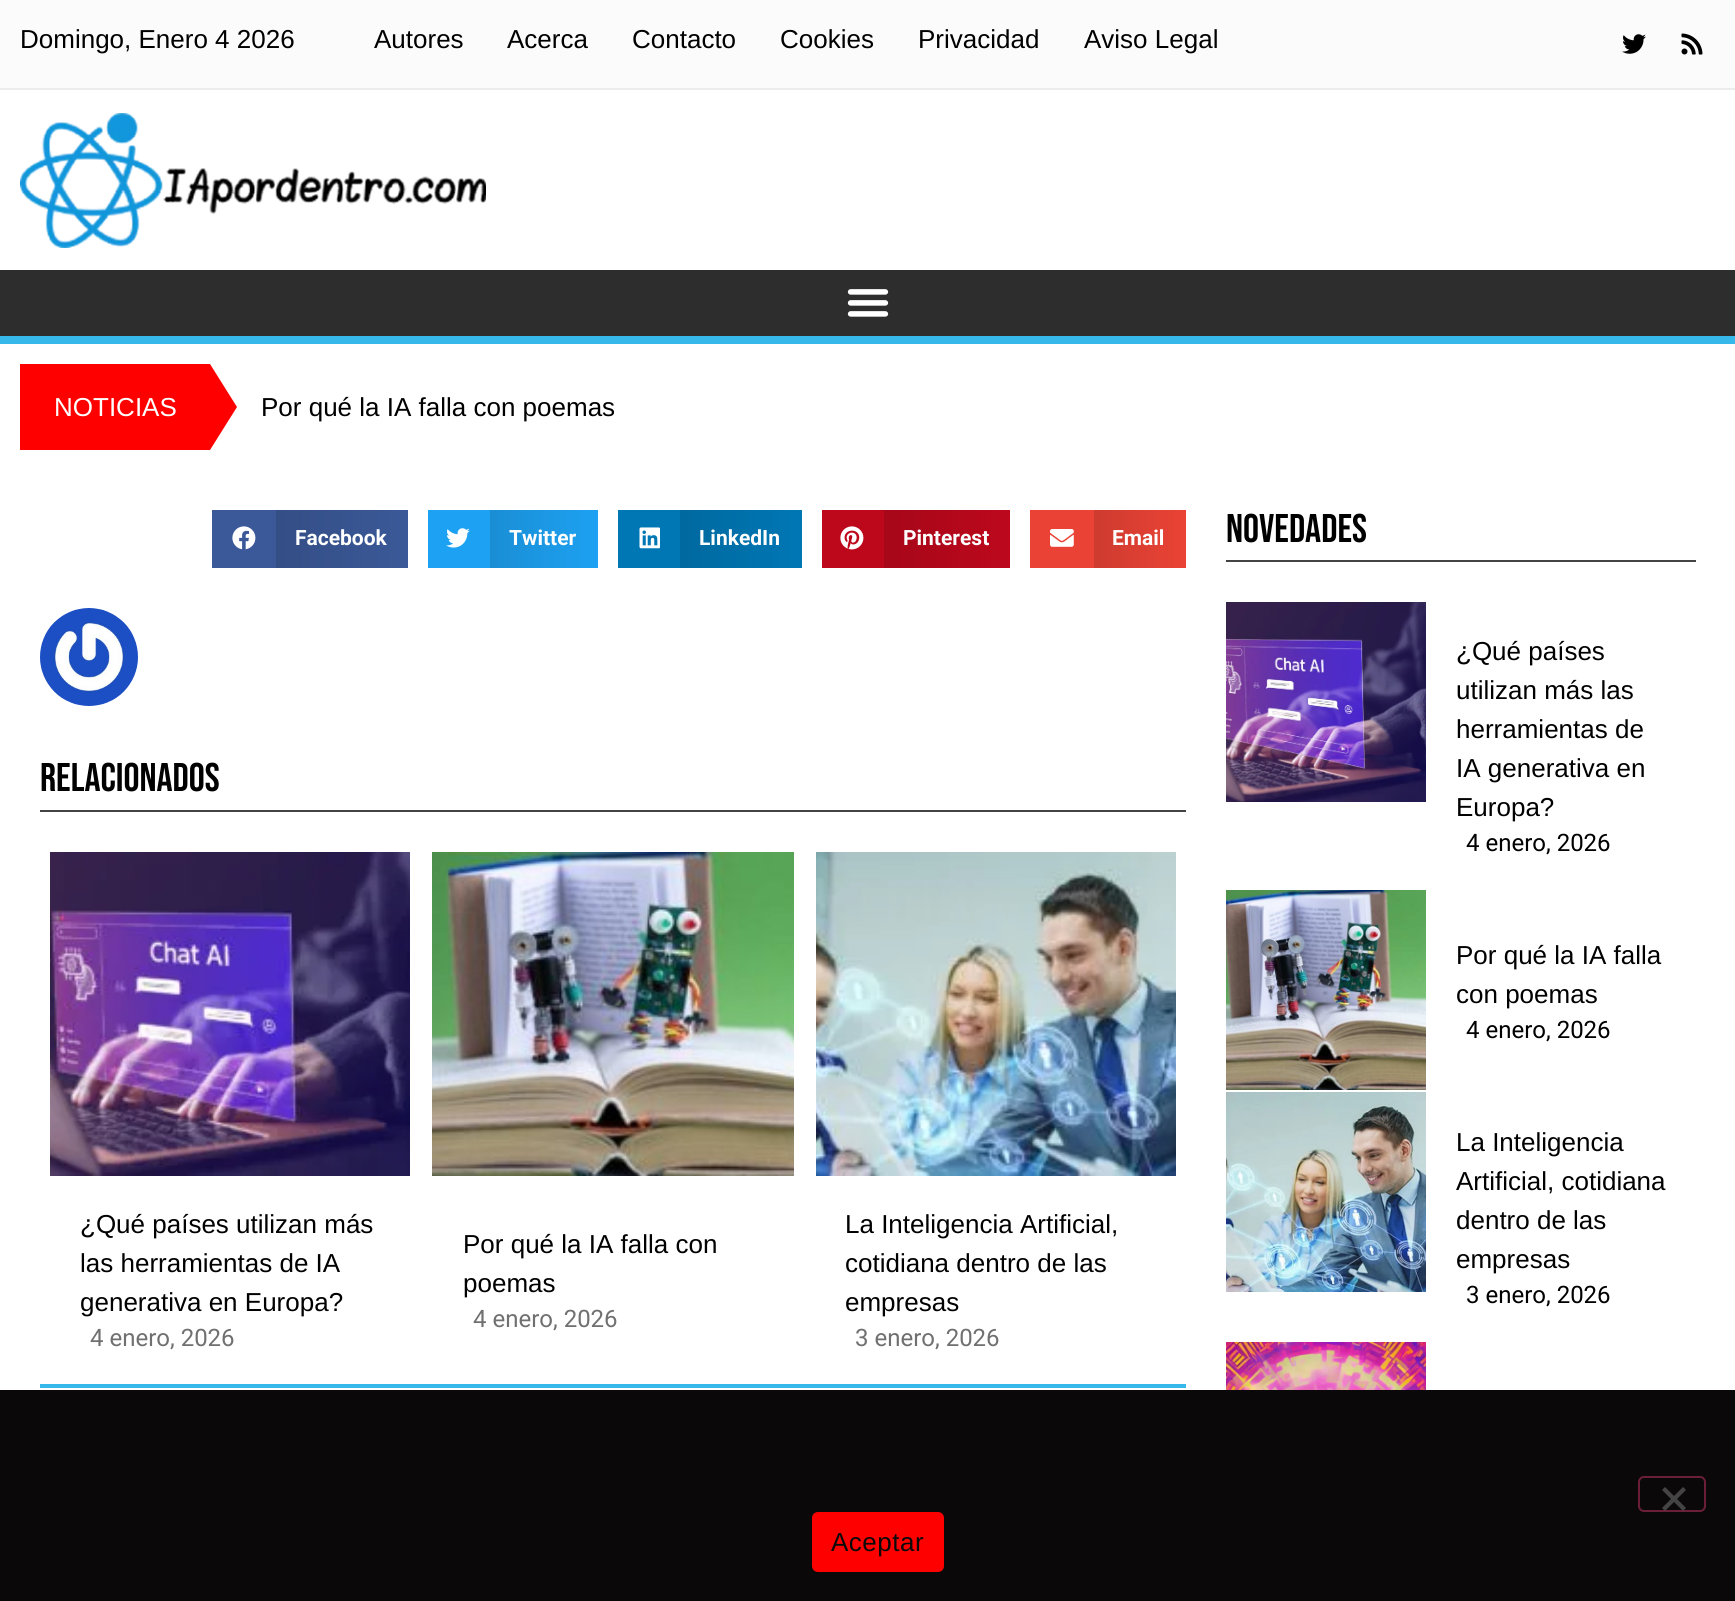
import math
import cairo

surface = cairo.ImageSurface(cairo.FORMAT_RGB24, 1735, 1601)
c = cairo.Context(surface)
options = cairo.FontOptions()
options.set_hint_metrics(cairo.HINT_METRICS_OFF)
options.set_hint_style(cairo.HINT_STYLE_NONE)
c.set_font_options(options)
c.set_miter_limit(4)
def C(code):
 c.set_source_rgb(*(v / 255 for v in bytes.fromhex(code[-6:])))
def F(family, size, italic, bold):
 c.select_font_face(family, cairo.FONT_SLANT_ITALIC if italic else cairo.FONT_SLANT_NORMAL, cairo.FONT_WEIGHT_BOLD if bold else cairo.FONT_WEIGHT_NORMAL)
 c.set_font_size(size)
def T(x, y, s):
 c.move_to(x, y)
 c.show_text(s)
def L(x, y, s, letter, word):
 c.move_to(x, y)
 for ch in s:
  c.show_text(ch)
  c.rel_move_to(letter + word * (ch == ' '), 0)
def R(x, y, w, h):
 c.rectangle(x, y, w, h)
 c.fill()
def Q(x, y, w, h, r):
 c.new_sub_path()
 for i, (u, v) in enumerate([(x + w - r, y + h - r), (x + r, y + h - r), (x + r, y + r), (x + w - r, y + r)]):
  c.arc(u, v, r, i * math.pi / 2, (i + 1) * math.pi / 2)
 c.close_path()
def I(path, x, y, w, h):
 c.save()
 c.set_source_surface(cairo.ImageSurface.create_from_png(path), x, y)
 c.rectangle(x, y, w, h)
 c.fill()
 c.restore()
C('ffffff')
c.paint()
C('fbfbfb')
R(0,0,1735,88)
C('ececec')
R(0,88,1735,2)
F('Liberation Sans',26,0,0)
C('000000')
T(20,48,'Domingo, Enero 4 2026')
T(374,48,'Autores')
T(507,48,'Acerca')
T(632,48,'Contacto')
T(780,48,'Cookies')
T(918,48,'Privacidad')
T(1084,48,'Aviso Legal')
I('1.png',1622,34,24,20)
I('2.png',1681,33,22,22)
I('3.png',20,113,466,135)
C('2d2d2d')
R(0,270,1735,66)
C('37b8eb')
R(0,336,1735,8)
I('4.png',847,289,42,28)
C('ff0000')
R(20,364,190,86)
C('ffffff')
T(54,416,'NOTICIAS')
c.save()
c.rectangle(210,364,100,86)
c.clip()
C('ff0000')
c.new_path()
c.move_to(210,364)
c.line_to(237,407)
c.line_to(210,450)
c.line_to(143,450)
c.close_path()
c.fill()
c.restore()
C('000000')
T(261,416,'Por qué la IA falla con poemas')
C('3b5998')
R(212,510,64,58)
I('5.png',232,526,24,24)
gradient = cairo.LinearGradient(276,539,408,539)
gradient.add_color_stop_rgba(0,0.204,0.306,0.525,1)
gradient.add_color_stop_rgba(1,0.231,0.349,0.596,1)
c.set_source(gradient)
R(276,510,132,58)
F('Roboto',21,0,1)
C('ffffff')
T(295,545,'Facebook')
C('1da1f2')
R(428,510,62,58)
I('6.png',446,528,24,20)
gradient = cairo.LinearGradient(490,539,598,539)
gradient.add_color_stop_rgba(0,0.102,0.557,0.835,1)
gradient.add_color_stop_rgba(1,0.114,0.631,0.949,1)
c.set_source(gradient)
R(490,510,108,58)
C('ffffff')
T(509,545,'Twitter')
C('0077b5')
R(618,510,62,58)
I('7.png',639,527,21,22)
gradient = cairo.LinearGradient(680,539,802,539)
gradient.add_color_stop_rgba(0,0,0.412,0.624,1)
gradient.add_color_stop_rgba(1,0,0.467,0.71,1)
c.set_source(gradient)
R(680,510,122,58)
C('ffffff')
T(699,545,'LinkedIn')
C('bd081c')
R(822,510,62,58)
I('8.png',840,526,24,24)
gradient = cairo.LinearGradient(884,539,1010,539)
gradient.add_color_stop_rgba(0,0.651,0.027,0.098,1)
gradient.add_color_stop_rgba(1,0.741,0.031,0.11,1)
c.set_source(gradient)
R(884,510,126,58)
C('ffffff')
T(903,545,'Pinterest')
C('ea4335')
R(1030,510,64,58)
I('9.png',1050,529,24,18)
gradient = cairo.LinearGradient(1094,539,1186,539)
gradient.add_color_stop_rgba(0,0.808,0.231,0.184,1)
gradient.add_color_stop_rgba(1,0.918,0.263,0.208,1)
c.set_source(gradient)
R(1094,510,92,58)
C('ffffff')
T(1112,545,'Email')
I('10.png',40,608,98,98)
C('444444')
R(40,810,1146,2)
F('Bebas Neue',40,0,0)
C('000000')
T(40,791,'RELACIONADOS')
C('37b8eb')
R(40,1384,1146,4)
I('11.png',50,852,360,324)
F('Liberation Sans',26,0,0)
C('000000')
T(80,1233,'¿Qué países utilizan más')
T(80,1272,'las herramientas de IA')
T(80,1311,'generativa en Europa?')
F('Roboto',24,0,0)
C('707070')
T(90,1346,'4 enero, 2026')
I('12.png',432,852,362,324)
F('Liberation Sans',26,0,0)
C('000000')
T(463,1253,'Por qué la IA falla con')
T(463,1292,'poemas')
F('Roboto',24,0,0)
C('707070')
T(473,1327,'4 enero, 2026')
I('13.png',816,852,360,324)
F('Liberation Sans',26,0,0)
C('000000')
T(845,1233,'La Inteligencia Artificial,')
T(845,1272,'cotidiana dentro de las')
T(845,1311,'empresas')
F('Roboto',24,0,0)
C('707070')
T(855,1346,'3 enero, 2026')
C('444444')
R(1226,560,470,2)
F('Bebas Neue',40,0,0)
C('000000')
T(1226,542,'novedades')
I('14.png',1226,602,200,200)
F('Liberation Sans',26,0,0)
T(1456,660,'¿Qué países')
T(1456,699,'utilizan más las')
T(1456,738,'herramientas de')
T(1456,777,'IA generativa en')
T(1456,816,'Europa?')
F('Roboto',24,0,0)
T(1466,851,'4 enero, 2026')
I('15.png',1226,890,200,200)
F('Liberation Sans',26,0,0)
T(1456,964,'Por qué la IA falla')
T(1456,1003,'con poemas')
F('Roboto',24,0,0)
T(1466,1038,'4 enero, 2026')
I('16.png',1226,1092,200,200)
F('Liberation Sans',26,0,0)
T(1456,1151,'La Inteligencia')
T(1456,1190,'Artificial, cotidiana')
T(1456,1229,'dentro de las')
T(1456,1268,'empresas')
F('Roboto',24,0,0)
T(1466,1303,'3 enero, 2026')
I('17.png',1226,1342,200,48)
C('0a0808')
R(0,1390,1735,211)
Q(1639,1477,66,34,5)
C('6b1e37')
c.stroke()
C('454444')
c.new_path()
c.move_to(1683,1487)
c.line_to(1686,1490)
c.line_to(1665,1511)
c.line_to(1662,1508)
c.close_path()
c.fill()
c.new_path()
c.move_to(1662,1490)
c.line_to(1665,1487)
c.line_to(1686,1508)
c.line_to(1683,1511)
c.close_path()
c.fill()
C('ff0000')
Q(812,1512,132,60,6)
c.fill()
F('Liberation Sans',26,0,0)
C('0a0a0a')
L(831,1551,'Aceptar',.5,0)
surface.write_to_png('o.png')
